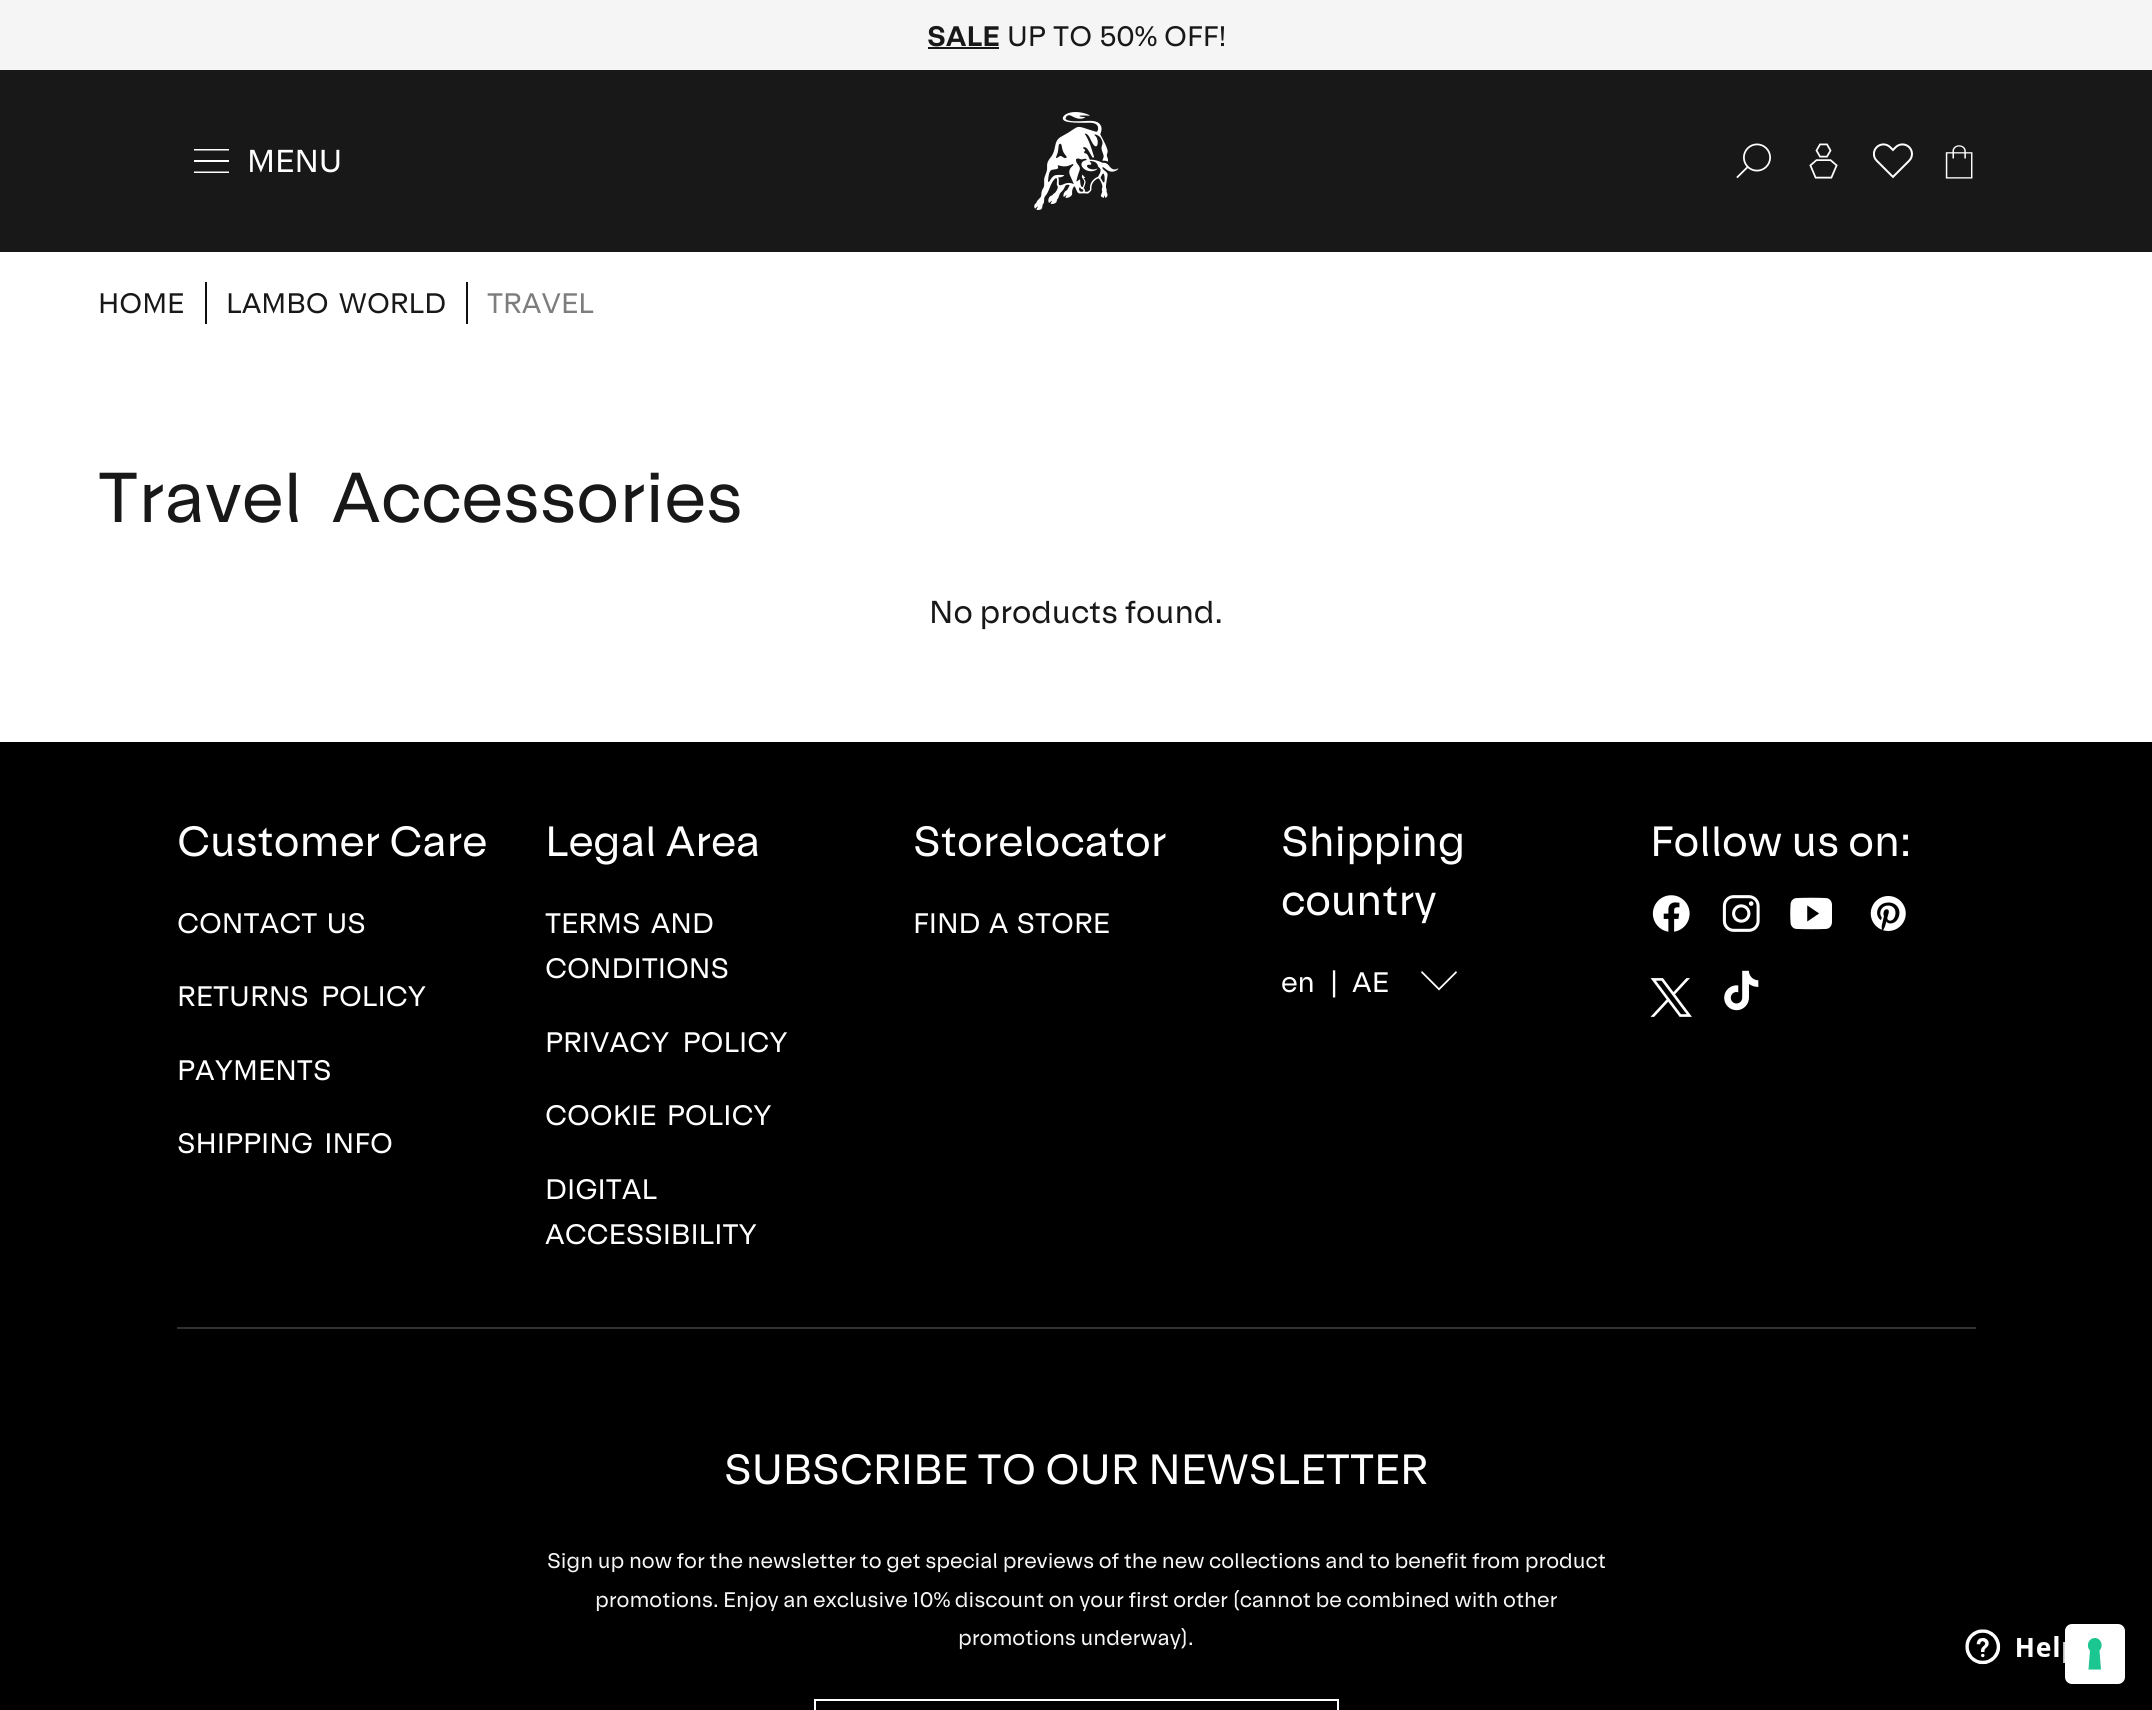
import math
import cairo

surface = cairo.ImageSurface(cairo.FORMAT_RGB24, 2152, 1710)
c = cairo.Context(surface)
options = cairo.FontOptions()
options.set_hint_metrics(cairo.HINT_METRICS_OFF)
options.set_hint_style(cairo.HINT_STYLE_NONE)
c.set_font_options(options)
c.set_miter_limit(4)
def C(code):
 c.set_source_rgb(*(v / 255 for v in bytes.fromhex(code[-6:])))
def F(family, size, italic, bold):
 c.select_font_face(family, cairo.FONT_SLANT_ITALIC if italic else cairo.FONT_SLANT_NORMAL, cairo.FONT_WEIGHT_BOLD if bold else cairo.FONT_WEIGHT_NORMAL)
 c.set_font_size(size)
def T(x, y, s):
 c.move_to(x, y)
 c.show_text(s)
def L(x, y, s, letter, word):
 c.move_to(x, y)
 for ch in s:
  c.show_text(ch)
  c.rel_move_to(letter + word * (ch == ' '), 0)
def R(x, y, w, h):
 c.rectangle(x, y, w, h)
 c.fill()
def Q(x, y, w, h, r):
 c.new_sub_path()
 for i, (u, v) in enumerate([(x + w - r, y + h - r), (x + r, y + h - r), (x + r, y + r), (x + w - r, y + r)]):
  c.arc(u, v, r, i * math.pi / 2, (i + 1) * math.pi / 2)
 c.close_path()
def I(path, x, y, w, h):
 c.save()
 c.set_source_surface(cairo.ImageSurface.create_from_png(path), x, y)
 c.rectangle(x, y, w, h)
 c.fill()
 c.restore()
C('ffffff')
c.paint()
C('f5f5f5')
R(0,0,2152,70)
F('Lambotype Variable',28,0,1)
C('181818')
T(927,46,'SALE')
R(928,47,71,2)
F('Lambotype Variable',28,0,0)
L(1007,46,'UP TO 50% OFF!',0,1)
R(0,70,2152,182)
C('ffffff')
c.new_path()
c.move_to(229,150.5)
c.line_to(194,150.5)
c.line_to(194,149)
c.line_to(229,149)
c.close_path()
c.move_to(229,171.5)
c.line_to(194,171.5)
c.line_to(194,173)
c.line_to(229,173)
c.close_path()
c.move_to(229,160)
c.line_to(194,160)
c.line_to(194,162)
c.line_to(229,162)
c.close_path()
c.fill()
F('Lambotype Variable',31.5,0,0)
T(247,172,'MENU')
I('1.png',1034,112,85,98)
I('2.png',1736,143,35,36)
I('3.png',1809,143,29,36)
I('4.png',1873,143,40,36)
I('5.png',1945,145,28,34)
F('Lambotype Variable',28,0,0)
C('181818')
T(98,313,'HOME')
C('0f0f0f')
R(205,282,2,42)
C('181818')
L(226,313,'LAMBO WORLD',0,4)
C('0f0f0f')
R(466,282,2,42)
C('7d7d7d')
T(487,313,'TRAVEL')
F('Lambotype Variable',70,0,0)
C('181818')
L(98,522,'Travel Accessories',0,14)
F('Lambotype Variable',31.5,0,0)
T(929,623,'No products found.')
C('000000')
R(0,742,2152,968)
F('Lambotype Variable',42,0,0)
C('ffffff')
T(177,856,'Customer Care')
F('Lambotype Variable',28,0,0)
L(177,933,'CONTACT US',0,3)
L(177,1006,'RETURNS POLICY',0,6)
T(177,1080,'PAYMENTS')
L(177,1153,'SHIPPING INFO',0,5)
F('Lambotype Variable',42,0,0)
T(545,856,'Legal Area')
F('Lambotype Variable',28,0,0)
L(545,933,'TERMS AND',0,4)
T(545,978,'CONDITIONS')
L(545,1052,'PRIVACY POLICY',0,7)
L(545,1125,'COOKIE POLICY',0,4)
T(545,1199,'DIGITAL')
T(545,1244,'ACCESSIBILITY')
F('Lambotype Variable',42,0,0)
T(913,856,'Storelocator')
F('Lambotype Variable',28,0,0)
L(913,933,'FIND A STORE',0,2)
F('Lambotype Variable',42,0,0)
T(1281,856,'Shipping')
T(1281,915,'country')
F('Lambotype Variable',28,0,0)
T(1281,992,'en')
T(1330,992,'|')
T(1352,992,'AE')
c.new_path()
c.move_to(1421,972.5)
c.line_to(1422,971)
c.line_to(1439,988)
c.line_to(1456,971)
c.line_to(1457,972.5)
c.line_to(1439,990.5)
c.close_path()
c.fill()
F('Lambotype Variable',42,0,0)
T(1650,856,'Follow us on:')
I('6.png',1652,895,38,37)
I('7.png',1722,895,38,37)
I('8.png',1790,897,42,33)
I('9.png',1870,896,36,35)
I('10.png',1650,978,42,39)
I('11.png',1724,970,35,41)
C('313131')
R(177,1327,1799,2)
C('ffffff')
T(724,1484,'SUBSCRIBE TO OUR NEWSLETTER')
F('Lambotype Variable',21,0,0)
C('f5f5f5')
T(547,1568,'Sign up now for the newsletter to get special previews of the new collections and to benefit from product')
T(595,1607,'promotions. Enjoy an exclusive 10% discount on your first order (cannot be combined with other')
T(958,1645,'promotions underway).')
c.rectangle(815,1700,523,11)
C('ffffff')
c.stroke()
I('12.png',1965,1629,101,36)
Q(2064,1623,61,61,8)
c.set_source_rgba(0,0,0,0.15)
c.stroke()
C('ffffff')
Q(2065,1624,60,60,7)
c.fill()
C('1cc691')
c.set_fill_rule(cairo.FILL_RULE_EVEN_ODD)
c.new_path()
c.move_to(2095,1638)
c.curve_to(2101,1638,2104,1646,2099.5,1650.5)
c.line_to(2101,1669.5)
c.line_to(2088.5,1669.5)
c.line_to(2090,1650.5)
c.curve_to(2085.5,1646,2088.5,1638,2095,1638)
c.close_path()
c.fill()
surface.write_to_png('o.png')
